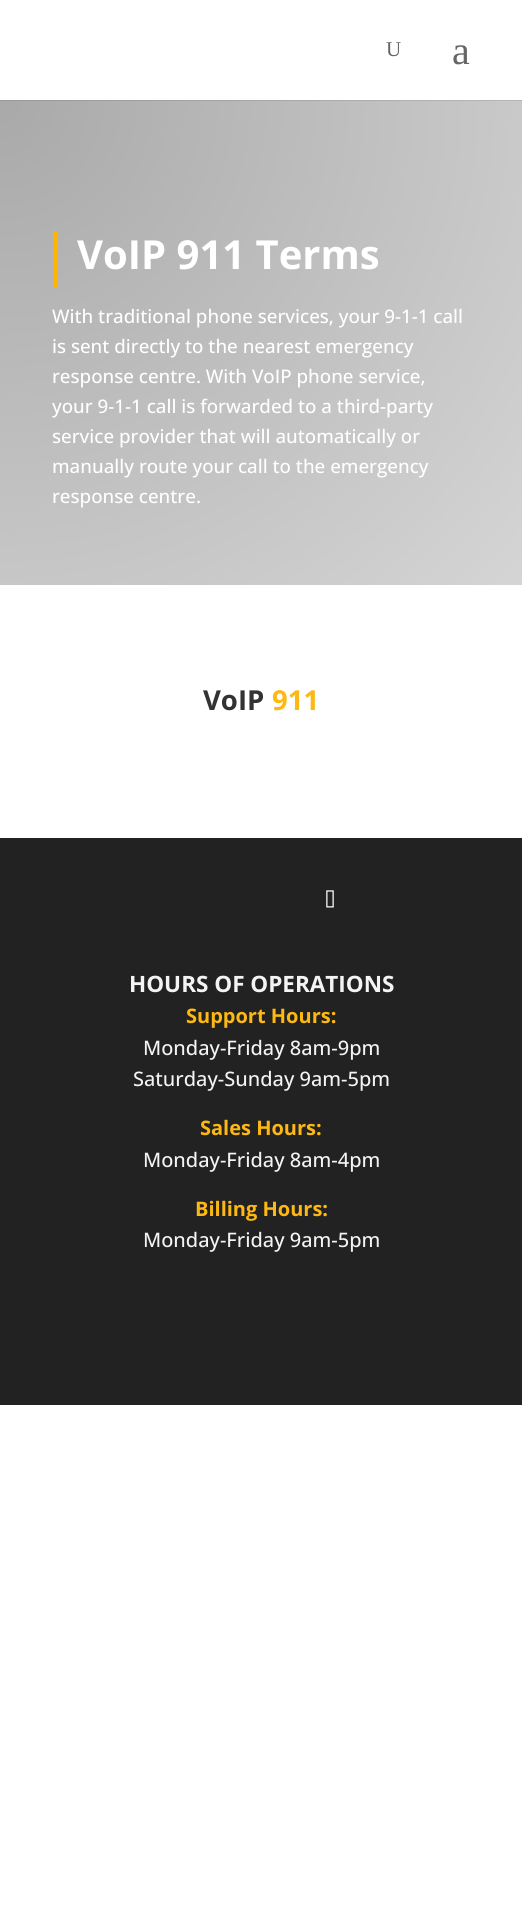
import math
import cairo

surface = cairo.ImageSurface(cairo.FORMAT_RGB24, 522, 1908)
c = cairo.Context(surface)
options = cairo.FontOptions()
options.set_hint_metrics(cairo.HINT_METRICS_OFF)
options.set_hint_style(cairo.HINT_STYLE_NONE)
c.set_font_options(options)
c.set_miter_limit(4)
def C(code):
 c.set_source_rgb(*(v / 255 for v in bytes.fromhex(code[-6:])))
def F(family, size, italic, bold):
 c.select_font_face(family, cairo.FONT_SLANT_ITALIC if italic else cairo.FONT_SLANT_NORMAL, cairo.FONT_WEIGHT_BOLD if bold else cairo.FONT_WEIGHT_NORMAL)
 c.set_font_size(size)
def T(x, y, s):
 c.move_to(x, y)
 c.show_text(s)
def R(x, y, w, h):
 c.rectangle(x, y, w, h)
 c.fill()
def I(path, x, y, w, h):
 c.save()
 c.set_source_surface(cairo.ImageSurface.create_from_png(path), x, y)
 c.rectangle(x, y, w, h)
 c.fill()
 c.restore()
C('ffffff')
c.paint()
gradient = cairo.RadialGradient(0,100,0,0,100,713)
gradient.add_color_stop_rgba(0,0.663,0.663,0.663,1)
gradient.add_color_stop_rgba(1,0.835,0.835,0.835,1)
c.set_source(gradient)
R(0,100,522,485)
c.set_source_rgba(0,0,0,0.1)
c.new_path()
c.move_to(0,100)
c.line_to(0,101)
c.line_to(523,101)
c.line_to(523,1)
c.line_to(522,1)
c.line_to(522,100)
c.close_path()
c.fill()
F('Liberation Serif',21,0,0)
C('666666')
T(386,56,'U')
F('Liberation Serif',40,0,0)
T(452,64,'a')
C('ffb400')
R(53,231,5,57)
F('Open Sans',40,0,1)
C('ffffff')
T(77,269,'VoIP 911 Terms')
F('Open Sans Medium',18.75,0,0)
T(52,323,'With traditional phone services, your 9-1-1 call')
T(52,353,'is sent directly to the nearest emergency')
T(52,383,'response centre. With VoIP phone service,')
T(52,413,'your 9-1-1 call is forwarded to a third-party')
T(52,443,'service provider that will automatically or')
T(52,473,'manually route your call to the emergency')
T(52,503,'response centre.')
F('Open Sans',27.5,0,1)
C('333333')
T(203,710,'VoIP')
C('fdb813')
T(272,710,'911')
C('222222')
R(0,838,522,567)
I('1.png',326,890,8,18)
F('Open Sans',22.5,0,1)
C('f4f4f4')
T(129,992,'HOURS OF OPERATIONS')
F('Open Sans',20,0,1)
C('fdb813')
T(186,1023,'Support Hours:')
F('Open Sans Medium',20,0,0)
C('f4f4f4')
T(143,1055,'Monday-Friday 8am-9pm')
T(133,1086,'Saturday-Sunday 9am-5pm')
F('Open Sans',20,0,1)
C('fdb813')
T(200,1135,'Sales Hours:')
F('Open Sans Medium',20,0,0)
C('f4f4f4')
T(143,1167,'Monday-Friday 8am-4pm')
F('Open Sans',20,0,1)
C('fdb813')
T(195,1216,'Billing Hours:')
F('Open Sans Medium',20,0,0)
C('f4f4f4')
T(143,1247,'Monday-Friday 9am-5pm')
surface.write_to_png('o.png')
